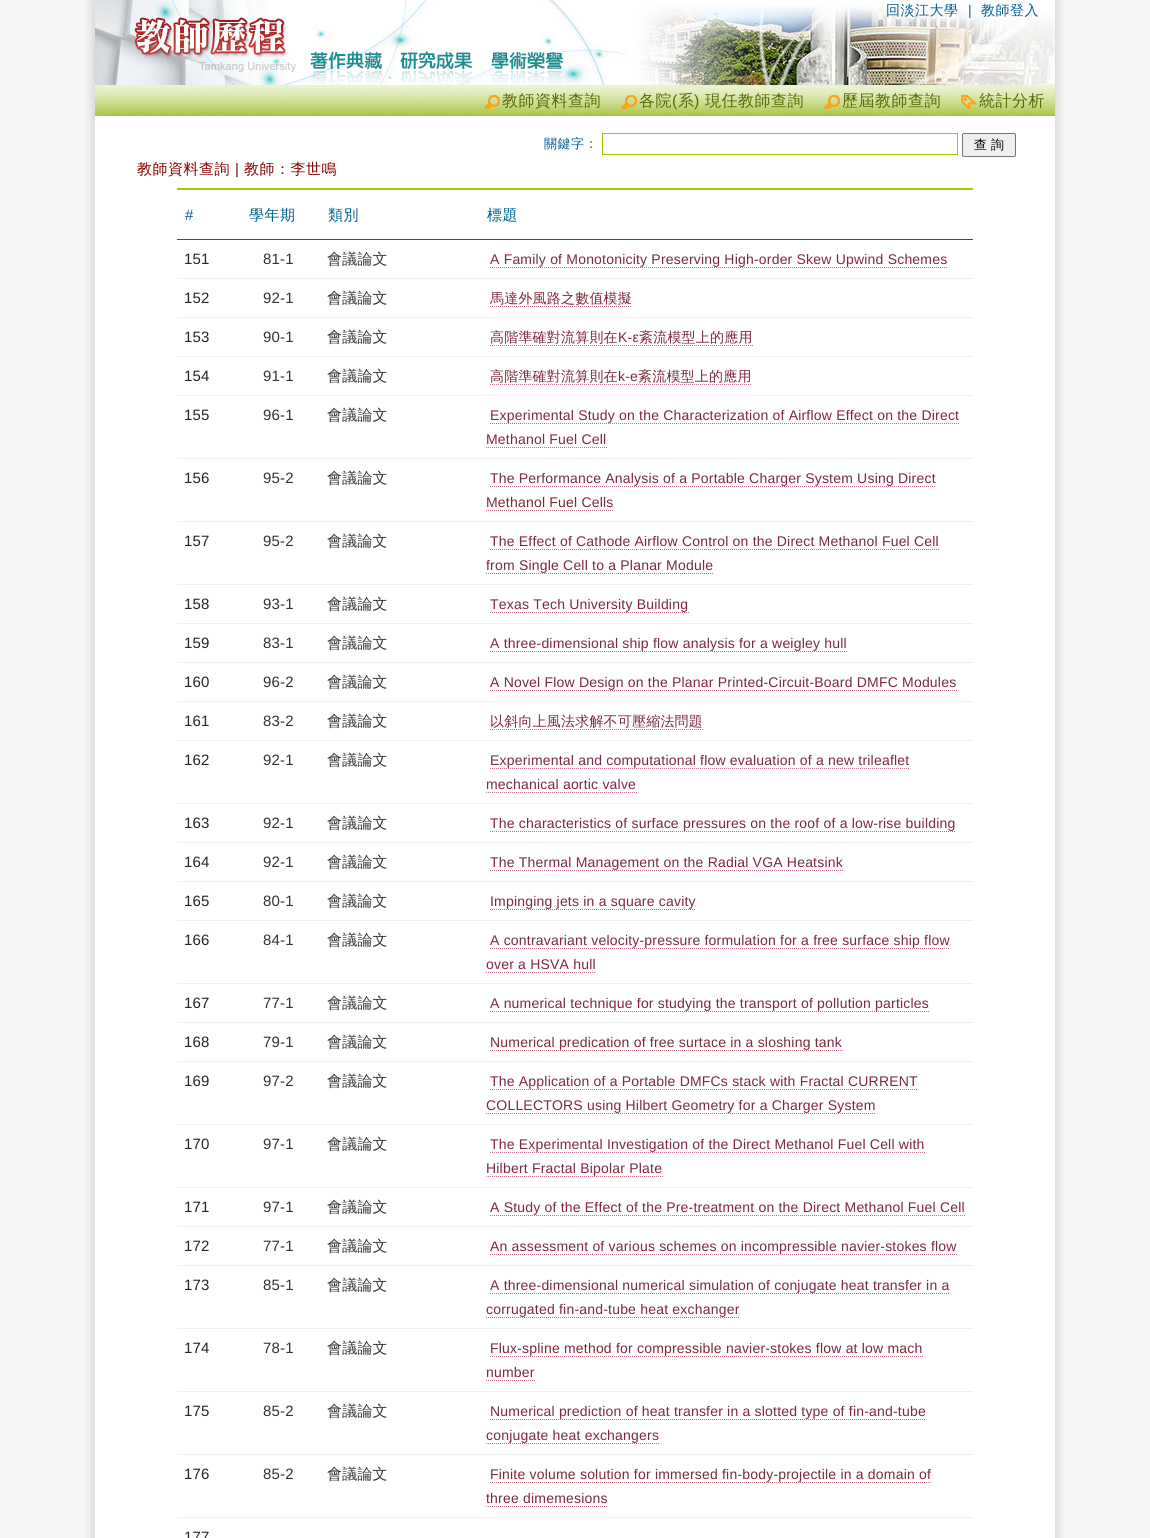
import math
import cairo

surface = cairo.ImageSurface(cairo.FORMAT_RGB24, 1150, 1538)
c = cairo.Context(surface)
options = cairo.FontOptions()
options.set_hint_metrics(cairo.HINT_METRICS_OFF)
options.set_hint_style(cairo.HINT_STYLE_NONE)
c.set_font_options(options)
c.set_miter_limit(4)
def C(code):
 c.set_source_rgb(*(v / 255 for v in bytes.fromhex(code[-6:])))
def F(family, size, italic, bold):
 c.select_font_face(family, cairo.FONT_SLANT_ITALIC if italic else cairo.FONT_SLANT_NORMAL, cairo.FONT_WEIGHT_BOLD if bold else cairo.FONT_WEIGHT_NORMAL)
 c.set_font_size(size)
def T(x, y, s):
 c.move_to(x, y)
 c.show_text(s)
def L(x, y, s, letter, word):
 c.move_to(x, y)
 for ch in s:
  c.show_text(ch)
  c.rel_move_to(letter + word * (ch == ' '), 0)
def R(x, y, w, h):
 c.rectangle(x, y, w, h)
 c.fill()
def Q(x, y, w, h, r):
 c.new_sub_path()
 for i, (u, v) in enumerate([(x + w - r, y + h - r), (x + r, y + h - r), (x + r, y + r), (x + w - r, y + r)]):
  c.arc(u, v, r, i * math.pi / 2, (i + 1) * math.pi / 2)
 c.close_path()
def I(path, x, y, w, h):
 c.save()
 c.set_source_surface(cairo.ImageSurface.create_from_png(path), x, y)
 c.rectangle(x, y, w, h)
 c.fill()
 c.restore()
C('f6f6f6')
c.paint()
I('1.png',86,0,978,85)
I('2.png',95,0,960,85)
F('WenQuanYi Zen Hei Medium',14,0,0)
C('006090')
L(886,15,'回淡江大學',.5,0)
F('Liberation Sans',14,0,0)
L(968,15,'|',.5,0)
F('WenQuanYi Zen Hei Medium',14,0,0)
L(981,15,'教師登入',.5,0)
I('3.png',86,85,978,31)
I('4.png',484,95,16,14)
F('WenQuanYi Zen Hei Medium',16,0,0)
C('5a6803')
L(502,106,'教師資料查詢',.5,0)
I('5.png',621,95,16,14)
L(639,106,'各院',.5,0)
F('Liberation Sans',16,0,0)
L(672,106,'(',.5,0)
F('WenQuanYi Zen Hei Medium',16,0,0)
L(678,106,'系',.5,0)
F('Liberation Sans',16,0,0)
L(694,106,')',.5,0)
F('WenQuanYi Zen Hei Medium',16,0,0)
L(705,106,'現任教師查詢',.5,0)
I('6.png',824,95,16,14)
L(842,106,'歷屆教師查詢',.5,0)
I('7.png',961,95,16,14)
L(979,106,'統計分析',.5,0)
I('8.png',86,116,978,1422)
F('WenQuanYi Zen Hei Medium',13,0,0)
C('006090')
L(544,148,'關鍵字：',.5,0)
c.rectangle(602.5,133.5,355,21)
C('abc507')
c.set_line_width(1)
c.stroke()
C('efefef')
Q(962.5,133.5,53,23,1.5)
c.fill_preserve()
C('767676')
c.stroke()
C('000000')
T(974,149,'查 詢')
F('WenQuanYi Zen Hei Medium',15,0,0)
C('880202')
L(137,174,'教師資料查詢',.5,0)
F('Liberation Sans',15,0,0)
L(235,174,'|',.5,0)
F('WenQuanYi Zen Hei Medium',15,0,0)
L(244,174,'教師：李世鳴',.5,0)
F('Liberation Sans',15,0,0)
C('006090')
L(185,220,'#',.5,0)
F('WenQuanYi Zen Hei Medium',15,0,0)
L(249,220,'學年期',.5,0)
L(328,220,'類別',.5,0)
R(177,239,796,1)
C('abc507')
R(177,188,796,2)
C('006090')
L(487,220,'標題',.5,0)
F('Liberation Sans',15,0,0)
C('212529')
L(184,264,'151',.2,0)
C('333333')
L(263,264,'81-1',.2,0)
F('WenQuanYi Zen Hei Medium',15,0,0)
L(327,264,'會議論文',.2,0)
C('efefef')
R(177,278,796,1)
F('Liberation Sans',14,0,0)
C('7d283d')
L(490,264,'A Family of Monotonicity Preserving High-order Skew Upwind Schemes',.2,0)
c.new_path()
c.move_to(490,267.5)
c.line_to(948,267.5)
C('c76c82')
c.set_dash([1,1])
c.stroke()
F('Liberation Sans',15,0,0)
C('212529')
L(184,303,'152',.2,0)
C('333333')
L(263,303,'92-1',.2,0)
F('WenQuanYi Zen Hei Medium',15,0,0)
L(327,303,'會議論文',.2,0)
C('efefef')
R(177,317,796,1)
F('WenQuanYi Zen Hei Medium',14,0,0)
C('7d283d')
L(490,303,'馬達外風路之數值模擬',.2,0)
c.new_path()
c.move_to(490,306.5)
c.line_to(632,306.5)
C('c76c82')
c.stroke()
F('Liberation Sans',15,0,0)
C('212529')
L(184,342,'153',.2,0)
C('333333')
L(263,342,'90-1',.2,0)
F('WenQuanYi Zen Hei Medium',15,0,0)
L(327,342,'會議論文',.2,0)
C('efefef')
R(177,356,796,1)
F('WenQuanYi Zen Hei Medium',14,0,0)
C('7d283d')
L(490,342,'高階準確對流算則在',.2,0)
c.new_path()
c.move_to(490,345.5)
c.line_to(753,345.5)
C('c76c82')
c.stroke()
F('Liberation Sans',14,0,0)
C('7d283d')
L(618,342,'K-ε',.2,0)
F('WenQuanYi Zen Hei Medium',14,0,0)
L(639,342,'紊流模型上的應用',.2,0)
F('Liberation Sans',15,0,0)
C('212529')
L(184,381,'154',.2,0)
C('333333')
L(263,381,'91-1',.2,0)
F('WenQuanYi Zen Hei Medium',15,0,0)
L(327,381,'會議論文',.2,0)
C('efefef')
R(177,395,796,1)
F('WenQuanYi Zen Hei Medium',14,0,0)
C('7d283d')
L(490,381,'高階準確對流算則在',.2,0)
c.new_path()
c.move_to(490,384.5)
c.line_to(752,384.5)
C('c76c82')
c.stroke()
F('Liberation Sans',14,0,0)
C('7d283d')
L(618,381,'k-e',.2,0)
F('WenQuanYi Zen Hei Medium',14,0,0)
L(638,381,'紊流模型上的應用',.2,0)
F('Liberation Sans',15,0,0)
C('212529')
L(184,420,'155',.2,0)
C('333333')
L(263,420,'96-1',.2,0)
F('WenQuanYi Zen Hei Medium',15,0,0)
L(327,420,'會議論文',.2,0)
C('efefef')
R(177,458,796,1)
F('Liberation Sans',14,0,0)
C('7d283d')
L(490,420,'Experimental Study on the Characterization of Airflow Effect on the Direct',.2,0)
c.new_path()
c.move_to(490,423.5)
c.line_to(960,423.5)
C('c76c82')
c.stroke()
C('7d283d')
L(486,444,'Methanol Fuel Cell',.2,0)
c.new_path()
c.move_to(486,447.5)
c.line_to(607,447.5)
C('c76c82')
c.stroke()
F('Liberation Sans',15,0,0)
C('212529')
L(184,483,'156',.2,0)
C('333333')
L(263,483,'95-2',.2,0)
F('WenQuanYi Zen Hei Medium',15,0,0)
L(327,483,'會議論文',.2,0)
C('efefef')
R(177,521,796,1)
F('Liberation Sans',14,0,0)
C('7d283d')
L(490,483,'The Performance Analysis of a Portable Charger System Using Direct',.2,0)
c.new_path()
c.move_to(490,486.5)
c.line_to(936,486.5)
C('c76c82')
c.stroke()
C('7d283d')
L(486,507,'Methanol Fuel Cells',.2,0)
c.new_path()
c.move_to(486,510.5)
c.line_to(614,510.5)
C('c76c82')
c.stroke()
F('Liberation Sans',15,0,0)
C('212529')
L(184,546,'157',.2,0)
C('333333')
L(263,546,'95-2',.2,0)
F('WenQuanYi Zen Hei Medium',15,0,0)
L(327,546,'會議論文',.2,0)
C('efefef')
R(177,584,796,1)
F('Liberation Sans',14,0,0)
C('7d283d')
L(490,546,'The Effect of Cathode Airflow Control on the Direct Methanol Fuel Cell',.2,0)
c.new_path()
c.move_to(490,549.5)
c.line_to(939,549.5)
C('c76c82')
c.stroke()
C('7d283d')
L(486,570,'from Single Cell to a Planar Module',.2,0)
c.new_path()
c.move_to(486,573.5)
c.line_to(714,573.5)
C('c76c82')
c.stroke()
F('Liberation Sans',15,0,0)
C('212529')
L(184,609,'158',.2,0)
C('333333')
L(263,609,'93-1',.2,0)
F('WenQuanYi Zen Hei Medium',15,0,0)
L(327,609,'會議論文',.2,0)
C('efefef')
R(177,623,796,1)
F('Liberation Sans',14,0,0)
C('7d283d')
L(490,609,'Texas Tech University Building',.2,0)
c.new_path()
c.move_to(490,612.5)
c.line_to(689,612.5)
C('c76c82')
c.stroke()
F('Liberation Sans',15,0,0)
C('212529')
L(184,648,'159',.2,0)
C('333333')
L(263,648,'83-1',.2,0)
F('WenQuanYi Zen Hei Medium',15,0,0)
L(327,648,'會議論文',.2,0)
C('efefef')
R(177,662,796,1)
F('Liberation Sans',14,0,0)
C('7d283d')
L(490,648,'A three-dimensional ship flow analysis for a weigley hull',.2,0)
c.new_path()
c.move_to(490,651.5)
c.line_to(847,651.5)
C('c76c82')
c.stroke()
F('Liberation Sans',15,0,0)
C('212529')
L(184,687,'160',.2,0)
C('333333')
L(263,687,'96-2',.2,0)
F('WenQuanYi Zen Hei Medium',15,0,0)
L(327,687,'會議論文',.2,0)
C('efefef')
R(177,701,796,1)
F('Liberation Sans',14,0,0)
C('7d283d')
L(490,687,'A Novel Flow Design on the Planar Printed-Circuit-Board DMFC Modules',.2,0)
c.new_path()
c.move_to(490,690.5)
c.line_to(957,690.5)
C('c76c82')
c.stroke()
F('Liberation Sans',15,0,0)
C('212529')
L(184,726,'161',.2,0)
C('333333')
L(263,726,'83-2',.2,0)
F('WenQuanYi Zen Hei Medium',15,0,0)
L(327,726,'會議論文',.2,0)
C('efefef')
R(177,740,796,1)
F('WenQuanYi Zen Hei Medium',14,0,0)
C('7d283d')
L(490,726,'以斜向上風法求解不可壓縮法問題',.2,0)
c.new_path()
c.move_to(490,729.5)
c.line_to(703,729.5)
C('c76c82')
c.stroke()
F('Liberation Sans',15,0,0)
C('212529')
L(184,765,'162',.2,0)
C('333333')
L(263,765,'92-1',.2,0)
F('WenQuanYi Zen Hei Medium',15,0,0)
L(327,765,'會議論文',.2,0)
C('efefef')
R(177,803,796,1)
F('Liberation Sans',14,0,0)
C('7d283d')
L(490,765,'Experimental and computational flow evaluation of a new trileaflet',.2,0)
c.new_path()
c.move_to(490,768.5)
c.line_to(910,768.5)
C('c76c82')
c.stroke()
C('7d283d')
L(486,789,'mechanical aortic valve',.2,0)
c.new_path()
c.move_to(486,792.5)
c.line_to(637,792.5)
C('c76c82')
c.stroke()
F('Liberation Sans',15,0,0)
C('212529')
L(184,828,'163',.2,0)
C('333333')
L(263,828,'92-1',.2,0)
F('WenQuanYi Zen Hei Medium',15,0,0)
L(327,828,'會議論文',.2,0)
C('efefef')
R(177,842,796,1)
F('Liberation Sans',14,0,0)
C('7d283d')
L(490,828,'The characteristics of surface pressures on the roof of a low-rise building',.2,0)
c.new_path()
c.move_to(490,831.5)
c.line_to(956,831.5)
C('c76c82')
c.stroke()
F('Liberation Sans',15,0,0)
C('212529')
L(184,867,'164',.2,0)
C('333333')
L(263,867,'92-1',.2,0)
F('WenQuanYi Zen Hei Medium',15,0,0)
L(327,867,'會議論文',.2,0)
C('efefef')
R(177,881,796,1)
F('Liberation Sans',14,0,0)
C('7d283d')
L(490,867,'The Thermal Management on the Radial VGA Heatsink',.2,0)
c.new_path()
c.move_to(490,870.5)
c.line_to(843,870.5)
C('c76c82')
c.stroke()
F('Liberation Sans',15,0,0)
C('212529')
L(184,906,'165',.2,0)
C('333333')
L(263,906,'80-1',.2,0)
F('WenQuanYi Zen Hei Medium',15,0,0)
L(327,906,'會議論文',.2,0)
C('efefef')
R(177,920,796,1)
F('Liberation Sans',14,0,0)
C('7d283d')
L(490,906,'Impinging jets in a square cavity',.2,0)
c.new_path()
c.move_to(490,909.5)
c.line_to(696,909.5)
C('c76c82')
c.stroke()
F('Liberation Sans',15,0,0)
C('212529')
L(184,945,'166',.2,0)
C('333333')
L(263,945,'84-1',.2,0)
F('WenQuanYi Zen Hei Medium',15,0,0)
L(327,945,'會議論文',.2,0)
C('efefef')
R(177,983,796,1)
F('Liberation Sans',14,0,0)
C('7d283d')
L(490,945,'A contravariant velocity-pressure formulation for a free surface ship flow',.2,0)
c.new_path()
c.move_to(490,948.5)
c.line_to(950,948.5)
C('c76c82')
c.stroke()
C('7d283d')
L(486,969,'over a HSVA hull',.2,0)
c.new_path()
c.move_to(486,972.5)
c.line_to(596,972.5)
C('c76c82')
c.stroke()
F('Liberation Sans',15,0,0)
C('212529')
L(184,1008,'167',.2,0)
C('333333')
L(263,1008,'77-1',.2,0)
F('WenQuanYi Zen Hei Medium',15,0,0)
L(327,1008,'會議論文',.2,0)
C('efefef')
R(177,1022,796,1)
F('Liberation Sans',14,0,0)
C('7d283d')
L(490,1008,'A numerical technique for studying the transport of pollution particles',.2,0)
c.new_path()
c.move_to(490,1011.5)
c.line_to(930,1011.5)
C('c76c82')
c.stroke()
F('Liberation Sans',15,0,0)
C('212529')
L(184,1047,'168',.2,0)
C('333333')
L(263,1047,'79-1',.2,0)
F('WenQuanYi Zen Hei Medium',15,0,0)
L(327,1047,'會議論文',.2,0)
C('efefef')
R(177,1061,796,1)
F('Liberation Sans',14,0,0)
C('7d283d')
L(490,1047,'Numerical predication of free surtace in a sloshing tank',.2,0)
c.new_path()
c.move_to(490,1050.5)
c.line_to(843,1050.5)
C('c76c82')
c.stroke()
F('Liberation Sans',15,0,0)
C('212529')
L(184,1086,'169',.2,0)
C('333333')
L(263,1086,'97-2',.2,0)
F('WenQuanYi Zen Hei Medium',15,0,0)
L(327,1086,'會議論文',.2,0)
C('efefef')
R(177,1124,796,1)
F('Liberation Sans',14,0,0)
C('7d283d')
L(490,1086,'The Application of a Portable DMFCs stack with Fractal CURRENT',.2,0)
c.new_path()
c.move_to(490,1089.5)
c.line_to(918,1089.5)
C('c76c82')
c.stroke()
C('7d283d')
L(486,1110,'COLLECTORS using Hilbert Geometry for a Charger System',.2,0)
c.new_path()
c.move_to(486,1113.5)
c.line_to(876,1113.5)
C('c76c82')
c.stroke()
F('Liberation Sans',15,0,0)
C('212529')
L(184,1149,'170',.2,0)
C('333333')
L(263,1149,'97-1',.2,0)
F('WenQuanYi Zen Hei Medium',15,0,0)
L(327,1149,'會議論文',.2,0)
C('efefef')
R(177,1187,796,1)
F('Liberation Sans',14,0,0)
C('7d283d')
L(490,1149,'The Experimental Investigation of the Direct Methanol Fuel Cell with',.2,0)
c.new_path()
c.move_to(490,1152.5)
c.line_to(925,1152.5)
C('c76c82')
c.stroke()
C('7d283d')
L(486,1173,'Hilbert Fractal Bipolar Plate',.2,0)
c.new_path()
c.move_to(486,1176.5)
c.line_to(663,1176.5)
C('c76c82')
c.stroke()
F('Liberation Sans',15,0,0)
C('212529')
L(184,1212,'171',.2,0)
C('333333')
L(263,1212,'97-1',.2,0)
F('WenQuanYi Zen Hei Medium',15,0,0)
L(327,1212,'會議論文',.2,0)
C('efefef')
R(177,1226,796,1)
F('Liberation Sans',14,0,0)
C('7d283d')
L(490,1212,'A Study of the Effect of the Pre-treatment on the Direct Methanol Fuel Cell',.2,0)
c.new_path()
c.move_to(490,1215.5)
c.line_to(965,1215.5)
C('c76c82')
c.stroke()
F('Liberation Sans',15,0,0)
C('212529')
L(184,1251,'172',.2,0)
C('333333')
L(263,1251,'77-1',.2,0)
F('WenQuanYi Zen Hei Medium',15,0,0)
L(327,1251,'會議論文',.2,0)
C('efefef')
R(177,1265,796,1)
F('Liberation Sans',14,0,0)
C('7d283d')
L(490,1251,'An assessment of various schemes on incompressible navier-stokes flow',.2,0)
c.new_path()
c.move_to(490,1254.5)
c.line_to(957,1254.5)
C('c76c82')
c.stroke()
F('Liberation Sans',15,0,0)
C('212529')
L(184,1290,'173',.2,0)
C('333333')
L(263,1290,'85-1',.2,0)
F('WenQuanYi Zen Hei Medium',15,0,0)
L(327,1290,'會議論文',.2,0)
C('efefef')
R(177,1328,796,1)
F('Liberation Sans',14,0,0)
C('7d283d')
L(490,1290,'A three-dimensional numerical simulation of conjugate heat transfer in a',.2,0)
c.new_path()
c.move_to(490,1293.5)
c.line_to(950,1293.5)
C('c76c82')
c.stroke()
C('7d283d')
L(486,1314,'corrugated fin-and-tube heat exchanger',.2,0)
c.new_path()
c.move_to(486,1317.5)
c.line_to(740,1317.5)
C('c76c82')
c.stroke()
F('Liberation Sans',15,0,0)
C('212529')
L(184,1353,'174',.2,0)
C('333333')
L(263,1353,'78-1',.2,0)
F('WenQuanYi Zen Hei Medium',15,0,0)
L(327,1353,'會議論文',.2,0)
C('efefef')
R(177,1391,796,1)
F('Liberation Sans',14,0,0)
C('7d283d')
L(490,1353,'Flux-spline method for compressible navier-stokes flow at low mach',.2,0)
c.new_path()
c.move_to(490,1356.5)
c.line_to(923,1356.5)
C('c76c82')
c.stroke()
C('7d283d')
L(486,1377,'number',.2,0)
c.new_path()
c.move_to(486,1380.5)
c.line_to(535,1380.5)
C('c76c82')
c.stroke()
F('Liberation Sans',15,0,0)
C('212529')
L(184,1416,'175',.2,0)
C('333333')
L(263,1416,'85-2',.2,0)
F('WenQuanYi Zen Hei Medium',15,0,0)
L(327,1416,'會議論文',.2,0)
C('efefef')
R(177,1454,796,1)
F('Liberation Sans',14,0,0)
C('7d283d')
L(490,1416,'Numerical prediction of heat transfer in a slotted type of fin-and-tube',.2,0)
c.new_path()
c.move_to(490,1419.5)
c.line_to(926,1419.5)
C('c76c82')
c.stroke()
C('7d283d')
L(486,1440,'conjugate heat exchangers',.2,0)
c.new_path()
c.move_to(486,1443.5)
c.line_to(660,1443.5)
C('c76c82')
c.stroke()
F('Liberation Sans',15,0,0)
C('212529')
L(184,1479,'176',.2,0)
C('333333')
L(263,1479,'85-2',.2,0)
F('WenQuanYi Zen Hei Medium',15,0,0)
L(327,1479,'會議論文',.2,0)
C('efefef')
R(177,1517,796,1)
F('Liberation Sans',14,0,0)
C('7d283d')
L(490,1479,'Finite volume solution for immersed fin-body-projectile in a domain of',.2,0)
c.new_path()
c.move_to(490,1482.5)
c.line_to(932,1482.5)
C('c76c82')
c.stroke()
C('7d283d')
L(486,1503,'three dimemesions',.2,0)
c.new_path()
c.move_to(486,1506.5)
c.line_to(608,1506.5)
C('c76c82')
c.stroke()
F('Liberation Sans',15,0,0)
C('212529')
L(184,1542,'177',.2,0)
surface.write_to_png('o.png')
